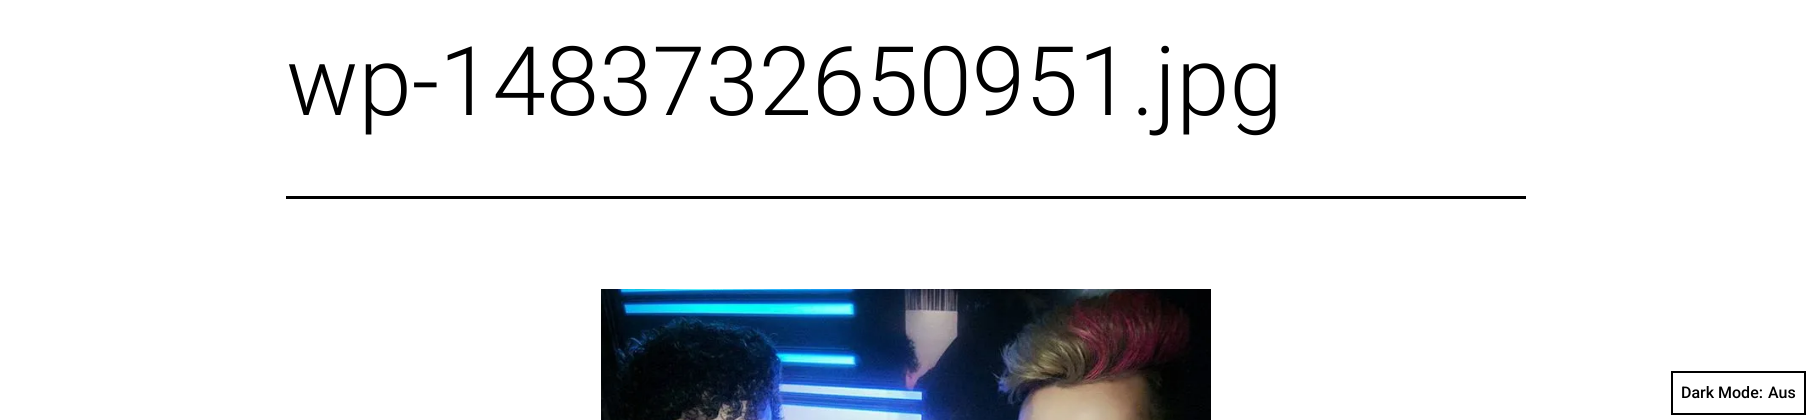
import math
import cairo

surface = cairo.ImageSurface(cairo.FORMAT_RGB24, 1811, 420)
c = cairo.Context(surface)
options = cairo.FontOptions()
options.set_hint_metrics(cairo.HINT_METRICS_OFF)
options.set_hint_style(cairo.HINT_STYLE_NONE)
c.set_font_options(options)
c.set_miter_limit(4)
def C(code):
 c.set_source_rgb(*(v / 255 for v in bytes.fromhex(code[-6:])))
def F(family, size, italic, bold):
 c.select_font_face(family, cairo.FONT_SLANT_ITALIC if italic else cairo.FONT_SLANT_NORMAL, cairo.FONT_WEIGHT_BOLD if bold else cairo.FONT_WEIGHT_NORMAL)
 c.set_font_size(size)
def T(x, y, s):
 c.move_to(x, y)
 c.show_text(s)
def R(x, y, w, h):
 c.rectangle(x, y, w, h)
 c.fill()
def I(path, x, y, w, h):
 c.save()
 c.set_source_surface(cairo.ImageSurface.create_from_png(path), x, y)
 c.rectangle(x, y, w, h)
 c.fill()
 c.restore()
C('ffffff')
c.paint()
C('000000')
R(286,196,1240,3)
F('Roboto Light',96,0,0)
T(286,115,'wp-1483732650951.jpg')
I('1.png',601,289,610,131)
c.rectangle(1672,372,133,42)
c.stroke()
F('Roboto Medium',16,0,0)
T(1681,398,'Dark Mode:')
T(1768,398,'Aus')
surface.write_to_png('o.png')
